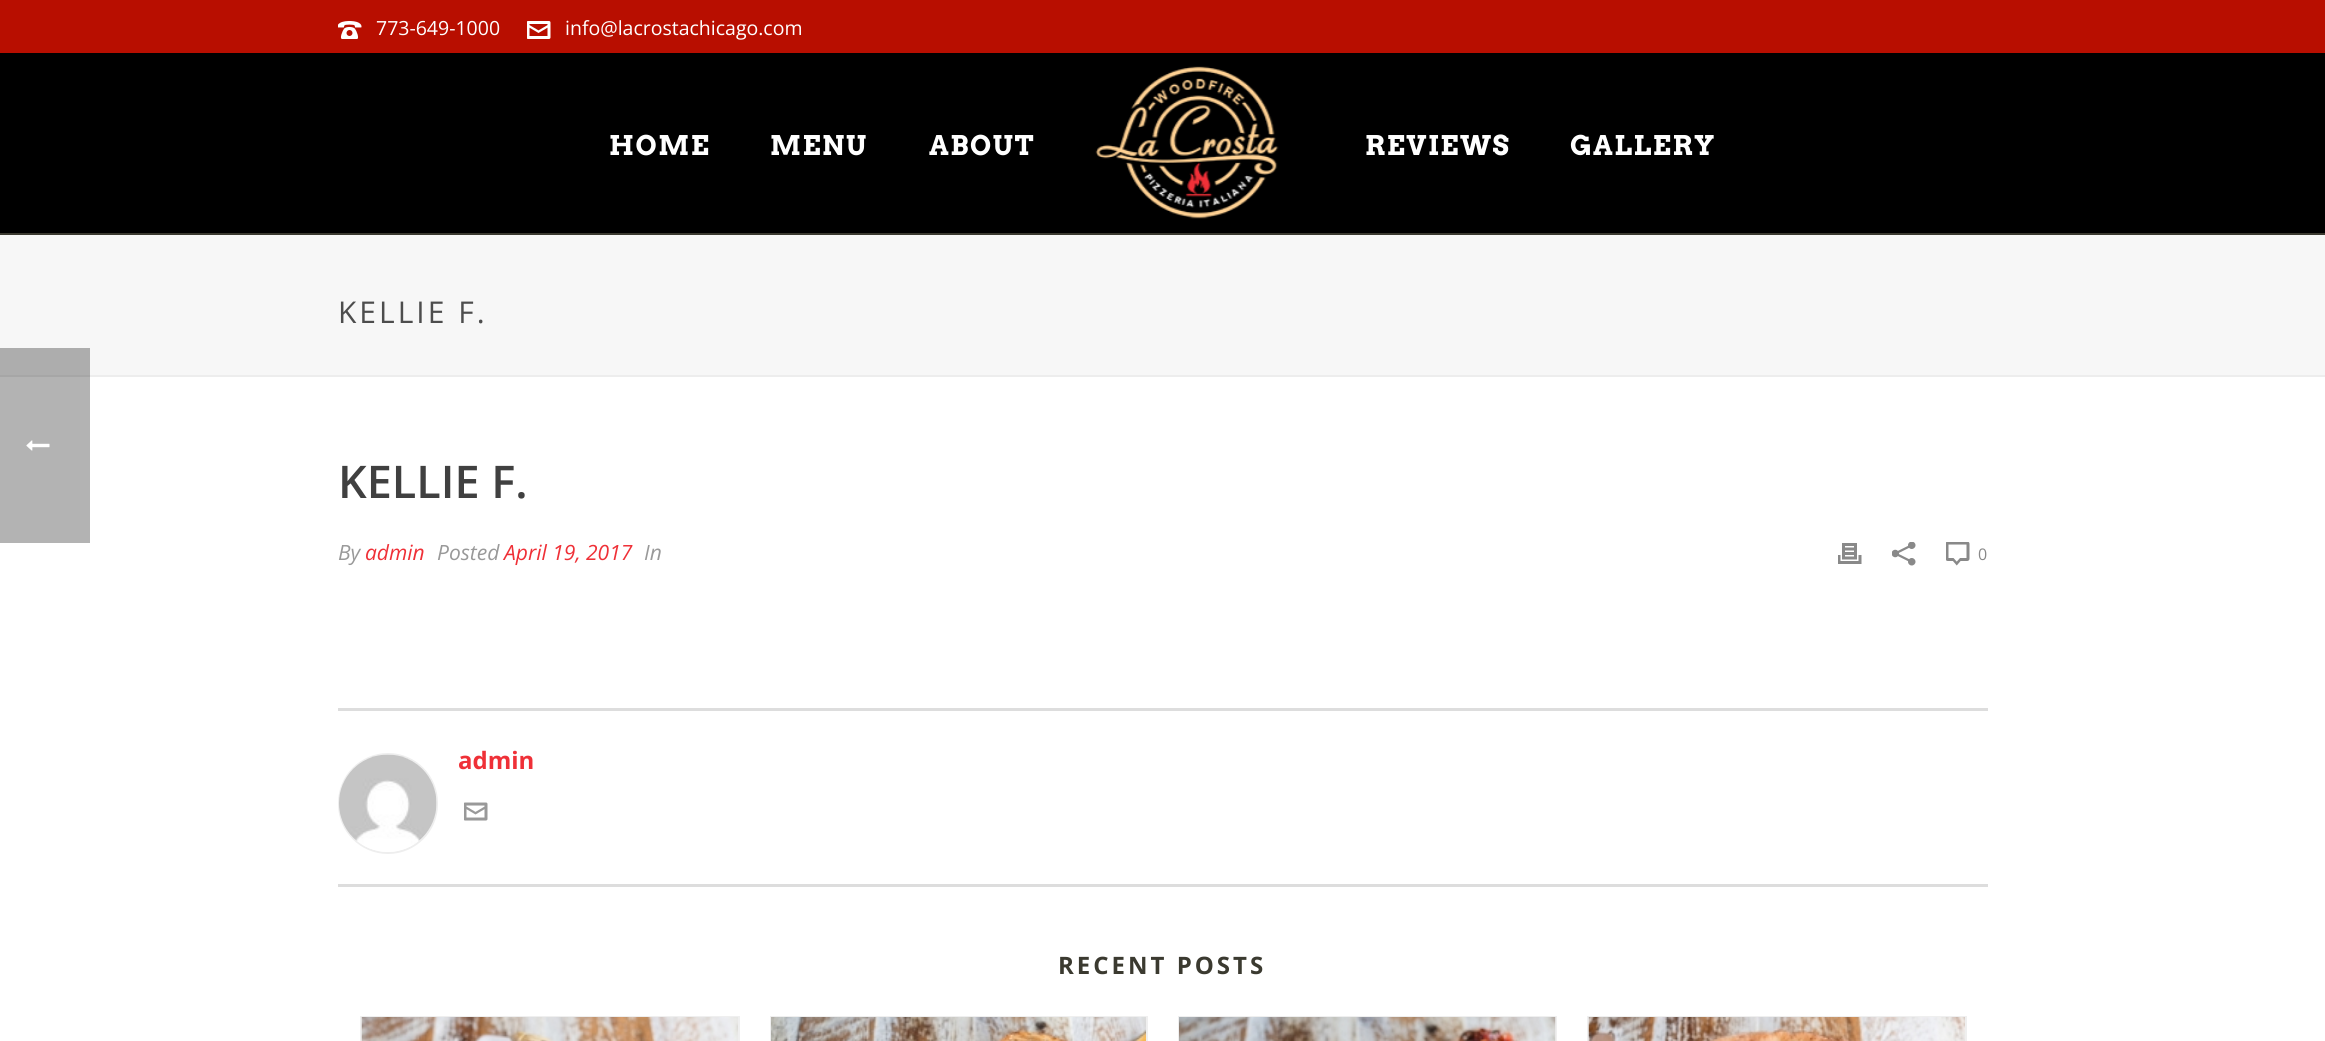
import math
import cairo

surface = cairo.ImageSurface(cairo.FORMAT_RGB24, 2325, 1041)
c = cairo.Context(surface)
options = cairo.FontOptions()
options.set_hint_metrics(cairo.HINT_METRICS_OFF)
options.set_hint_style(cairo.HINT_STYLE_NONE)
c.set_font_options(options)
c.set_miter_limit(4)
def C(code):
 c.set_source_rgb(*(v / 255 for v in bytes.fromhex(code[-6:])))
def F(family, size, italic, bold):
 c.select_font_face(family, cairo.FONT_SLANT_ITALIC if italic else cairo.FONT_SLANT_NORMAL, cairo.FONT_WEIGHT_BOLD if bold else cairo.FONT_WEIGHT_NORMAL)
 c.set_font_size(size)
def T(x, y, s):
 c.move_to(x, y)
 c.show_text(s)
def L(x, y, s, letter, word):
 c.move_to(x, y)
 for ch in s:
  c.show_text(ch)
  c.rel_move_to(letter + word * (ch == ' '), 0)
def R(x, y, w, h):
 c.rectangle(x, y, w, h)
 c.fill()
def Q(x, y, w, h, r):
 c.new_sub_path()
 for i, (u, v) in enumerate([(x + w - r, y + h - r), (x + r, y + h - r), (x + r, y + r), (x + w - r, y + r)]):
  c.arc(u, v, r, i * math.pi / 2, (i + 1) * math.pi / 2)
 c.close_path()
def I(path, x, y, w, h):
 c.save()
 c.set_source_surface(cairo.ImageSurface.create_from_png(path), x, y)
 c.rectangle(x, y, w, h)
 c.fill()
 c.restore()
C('ffffff')
c.paint()
C('b3b3b3')
R(0,377,90,166)
I('1.png',26,440,24,11)
C('f7f7f7')
R(0,235,2325,140)
C('adadad')
R(0,348,90,27)
C('ededed')
R(90,375,2235,2)
C('a6a6a6')
R(0,375,90,2)
C('b80e00')
R(0,0,2325,53)
I('2.png',338,21,24,18)
F('Open Sans',19.5,0,0)
C('ffffff')
T(376,35,'773-649-1000')
I('3.png',527,21,24,18)
T(565,35,'info@lacrostachicago.com')
C('3b3a30')
R(0,233,2325,2)
C('000000')
R(0,53,2325,180)
F('Arvo',27,0,1)
C('ffffff')
L(609,155,'HOME',1.5,0)
L(770,155,'MENU',1.5,0)
L(929,155,'ABOUT',1.5,0)
I('4.png',1095,66,184,153)
L(1365,155,'REVIEWS',1.5,0)
L(1570,155,'GALLERY',1.5,0)
F('Open Sans',30,0,0)
C('4d4d4d')
L(338,323,'KELLIE F.',3,0)
F('Open Sans SemiBold',45,0,0)
C('404040')
T(338,498,'KELLIE F.')
F('Open Sans',21,1,0)
C('999999')
T(338,560,'By')
C('ef3037')
T(365,560,'admin')
C('999999')
T(437,560,'Posted')
C('ef3037')
T(504,560,'April 19, 2017')
C('999999')
T(644,560,'In')
I('5.png',1838,543,24,21)
I('6.png',1892,542,24,24)
I('7.png',1946,542,24,24)
F('Open Sans',16,0,0)
C('898989')
T(1978,560,'0')
C('dddddd')
R(338,708,1650,3)
R(338,884,1650,3)
Q(339,754,98,99,49)
C('eeeeee')
c.stroke()
I('8.png',339,754,98,98)
F('Open Sans',24,0,1)
C('ef3037')
T(458,769,'admin')
I('9.png',464,802,24,19)
C('3b3a30')
L(1058,974,'RECENT POSTS',3,0)
c.rectangle(361,1017,378,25)
C('efefef')
c.stroke()
I('10.png',361,1017,377,24)
c.rectangle(771,1017,376,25)
c.stroke()
I('11.png',771,1017,375,24)
c.rectangle(1179,1017,377,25)
c.stroke()
I('12.png',1179,1017,377,24)
c.rectangle(1588,1017,378,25)
c.stroke()
I('13.png',1588,1017,377,24)
surface.write_to_png('o.png')
